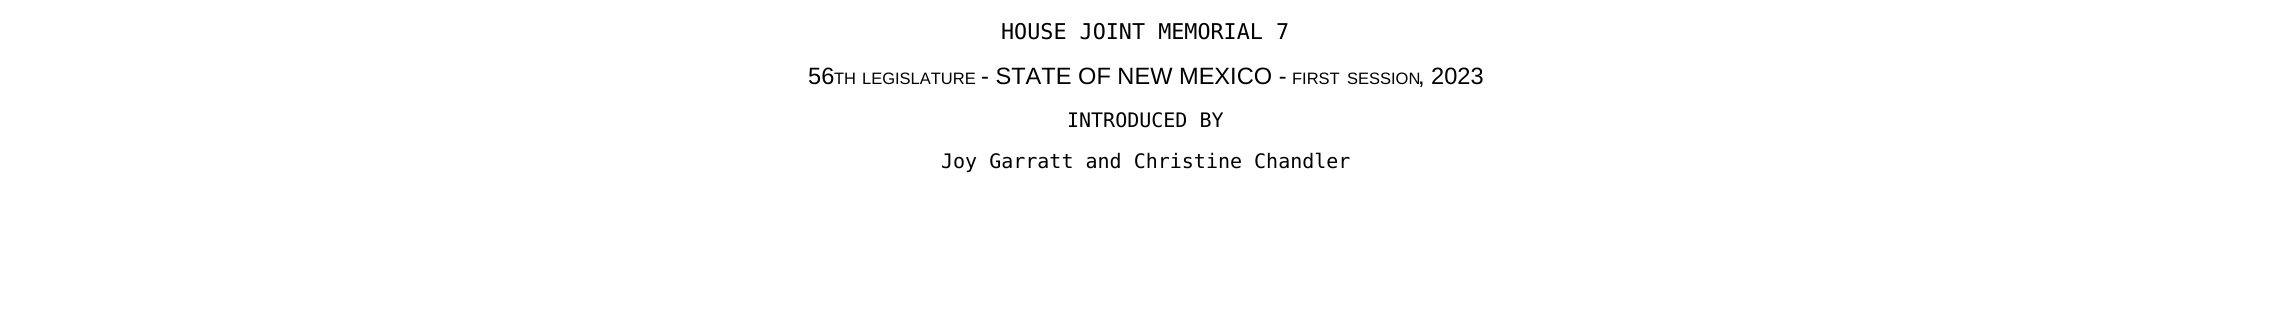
import math
import cairo

surface = cairo.ImageSurface(cairo.FORMAT_RGB24, 2291, 309)
c = cairo.Context(surface)
options = cairo.FontOptions()
options.set_hint_metrics(cairo.HINT_METRICS_OFF)
options.set_hint_style(cairo.HINT_STYLE_NONE)
c.set_font_options(options)
c.set_miter_limit(4)
def C(code):
 c.set_source_rgb(*(v / 255 for v in bytes.fromhex(code[-6:])))
def F(family, size, italic, bold):
 c.select_font_face(family, cairo.FONT_SLANT_ITALIC if italic else cairo.FONT_SLANT_NORMAL, cairo.FONT_WEIGHT_BOLD if bold else cairo.FONT_WEIGHT_NORMAL)
 c.set_font_size(size)
def T(x, y, s):
 c.move_to(x, y)
 c.show_text(s)
C('ffffff')
c.paint()
F('DejaVu Sans Mono',21.75,0,0)
C('000000')
T(1001,39,'HOUSE JOINT MEMORIAL 7')
F('Liberation Sans',23.6,0,0)
T(808,84,'56')
F('Liberation Sans',16.5,0,0)
T(834,84,'TH')
T(862,84,'LEGISLATURE')
F('Liberation Sans',23.6,0,0)
T(981,84,'- STATE OF NEW MEXICO -')
F('Liberation Sans',16.5,0,0)
T(1292,84,'FIRST')
T(1347,84,'SESSION')
F('Liberation Sans',23.6,0,0)
T(1418,84,', 2023')
F('DejaVu Sans Mono',20,0,0)
T(1067,127,'INTRODUCED BY')
T(941,168,'Joy Garratt and Christine Chandler')
surface.write_to_png('o.png')
